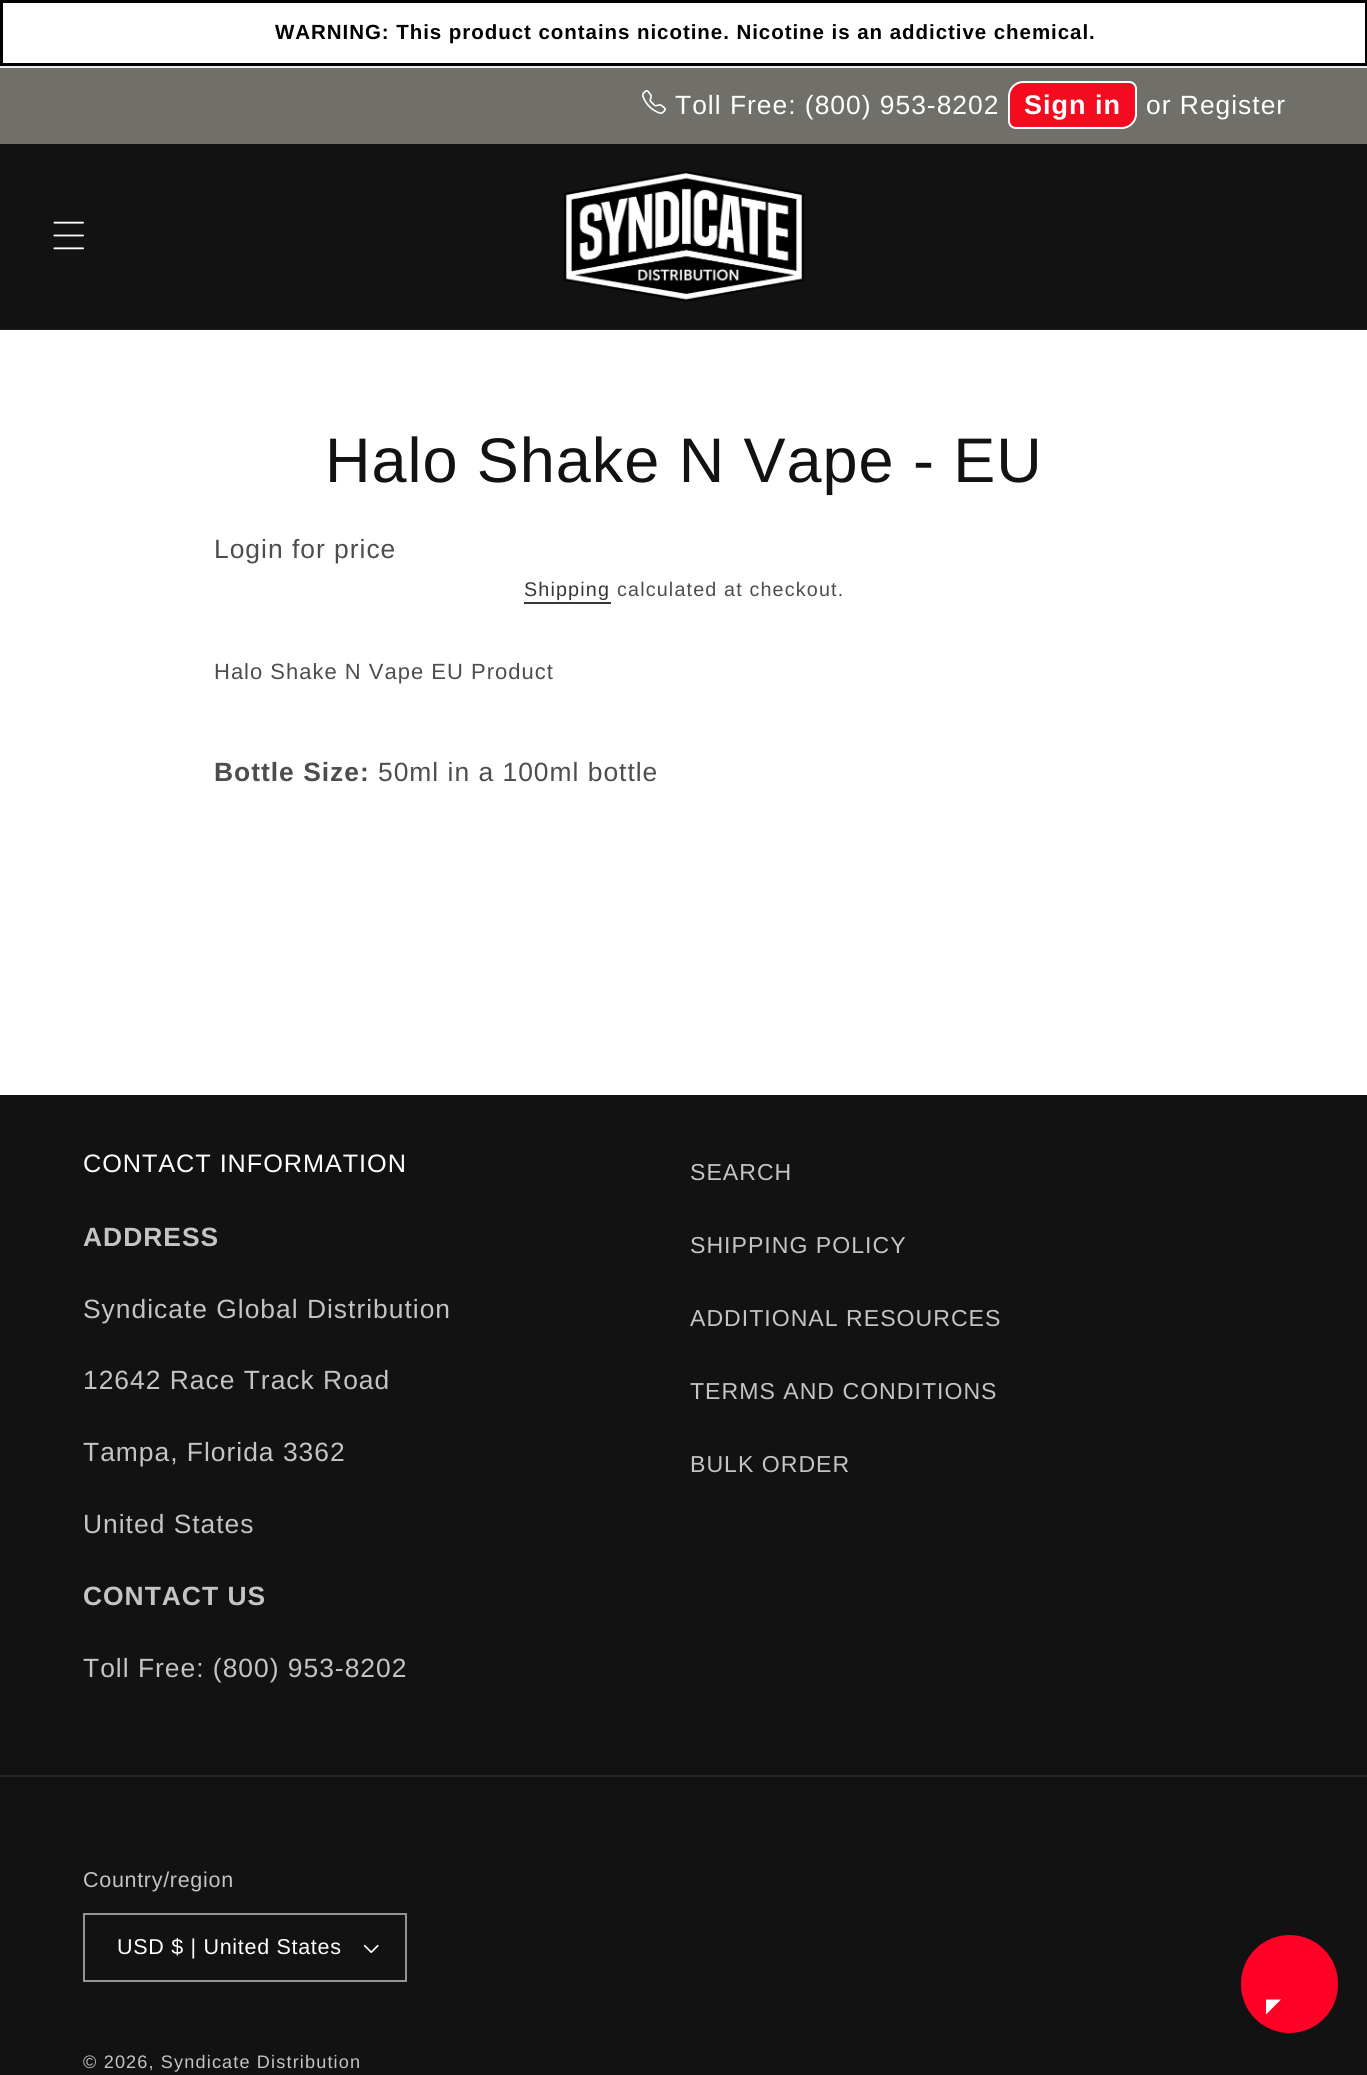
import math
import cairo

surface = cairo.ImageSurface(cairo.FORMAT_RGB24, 1367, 2075)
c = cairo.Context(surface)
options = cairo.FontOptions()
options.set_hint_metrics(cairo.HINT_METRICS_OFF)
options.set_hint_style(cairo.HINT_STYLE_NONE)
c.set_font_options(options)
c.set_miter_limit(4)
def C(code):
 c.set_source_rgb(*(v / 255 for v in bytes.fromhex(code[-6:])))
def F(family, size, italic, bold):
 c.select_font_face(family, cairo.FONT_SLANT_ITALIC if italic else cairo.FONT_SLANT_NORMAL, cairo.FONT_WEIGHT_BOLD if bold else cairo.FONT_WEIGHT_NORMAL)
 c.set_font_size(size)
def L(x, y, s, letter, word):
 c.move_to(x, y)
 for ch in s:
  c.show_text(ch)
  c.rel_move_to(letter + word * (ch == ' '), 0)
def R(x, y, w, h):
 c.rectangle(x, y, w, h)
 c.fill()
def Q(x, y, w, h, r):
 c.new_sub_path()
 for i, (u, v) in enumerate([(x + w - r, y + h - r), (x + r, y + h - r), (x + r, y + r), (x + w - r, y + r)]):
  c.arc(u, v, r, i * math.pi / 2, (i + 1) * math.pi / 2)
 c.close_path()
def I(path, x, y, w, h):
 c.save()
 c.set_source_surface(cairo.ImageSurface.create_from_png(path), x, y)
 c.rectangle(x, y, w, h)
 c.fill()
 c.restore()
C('ffffff')
c.paint()
C('ececec')
R(0,66,1367,2)
c.rectangle(1.5,1.5,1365,63)
C('000000')
c.set_line_width(3)
c.stroke()
F('Liberation Sans',20.5,0,1)
L(275,39,'WARNING: This product contains nicotine. Nicotine is an addictive chemical.',.95,0)
C('706f69')
R(0,68,1367,76)
I('1.png',642,90,24,24)
F('Liberation Sans',26.4,0,0)
C('ffffff')
L(675,114,'Toll Free: (800) 953-8202',1,0)
C('f40b1f')
c.new_path()
c.move_to(1023,82)
c.line_to(1129,82)
c.curve_to(1133,82,1136,85,1136,89)
c.line_to(1136,114)
c.curve_to(1136,121.5,1129.5,128,1122,128)
c.line_to(1016,128)
c.curve_to(1012,128,1009,125,1009,121)
c.line_to(1009,96)
c.curve_to(1009,88.5,1015.5,82,1023,82)
c.close_path()
c.fill_preserve()
C('ffffff')
c.set_line_width(2)
c.stroke()
F('Liberation Sans',27,0,1)
L(1024,114,'Sign in',1,0)
F('Liberation Sans',26.4,0,0)
L(1146,114,'or Register',1,0)
C('121212')
R(0,144,1367,185)
C('252525')
R(0,329,1367,1)
I('2.png',53,221,31,29)
I('3.png',564,171,240,131)
F('Liberation Sans',63,0,0)
C('121212')
L(325,482,'Halo Shake N Vape - EU',.95,0)
F('Liberation Sans',26.4,0,0)
C('4d4d4d')
L(214,558,'Login for price',1,0)
F('Liberation Sans',19.75,0,0)
C('363636')
L(524,596,'Shipping',1.15,0)
R(524,602,87,2)
C('4d4d4d')
L(617,596,'calculated at checkout.',1.15,0)
F('Liberation Sans',22,0,0)
L(214,679,'Halo Shake N Vape EU Product',1,0)
F('Liberation Sans',26.4,0,1)
L(214,781,'Bottle Size:',1,0)
F('Liberation Sans',26.4,0,0)
L(378,781,'50ml in a 100ml bottle',1,0)
C('121212')
R(0,1095,1367,980)
F('Liberation Sans',25.25,0,0)
C('ffffff')
L(83,1172,'CONTACT INFORMATION',.95,0)
F('Liberation Sans',26.4,0,1)
C('c4c4c4')
L(83,1246,'ADDRESS',1,0)
F('Liberation Sans',26.4,0,0)
L(83,1318,'Syndicate Global Distribution',1,0)
L(83,1389,'12642 Race Track Road',1,0)
L(83,1461,'Tampa, Florida 3362',1,0)
L(83,1533,'United States',1,0)
F('Liberation Sans',26.4,0,1)
L(83,1605,'CONTACT US',1,0)
F('Liberation Sans',26.4,0,0)
L(83,1677,'Toll Free: (800) 953-8202',1,0)
F('Liberation Sans',23.1,0,0)
L(690,1180,'SEARCH',1,0)
L(690,1253,'SHIPPING POLICY',1,0)
L(690,1326,'ADDITIONAL RESOURCES',1,0)
L(690,1399,'TERMS AND CONDITIONS',1,0)
L(690,1472,'BULK ORDER',1,0)
C('252525')
R(0,1775,1367,2)
F('Liberation Sans',21.5,0,0)
C('c4c4c4')
L(83,1887,'Country/region',.7,0)
I('4.png',363,1944,16,9)
c.rectangle(84,1914,322,67)
C('949494')
c.stroke()
C('ffffff')
L(117,1954,'USD $ | United States',.7,0)
F('Liberation Sans',18.1,0,0)
C('c4c4c4')
L(83,2068,'© 2026, Syndicate Distribution',1.15,0)
C('ff0026')
Q(1241,1935,97,98,48.5)
c.fill()
C('ffffff')
c.new_path()
c.move_to(1266,2014.5)
c.line_to(1266,1999.5)
c.line_to(1281,1999.5)
c.close_path()
c.fill()
surface.write_to_png('o.png')
